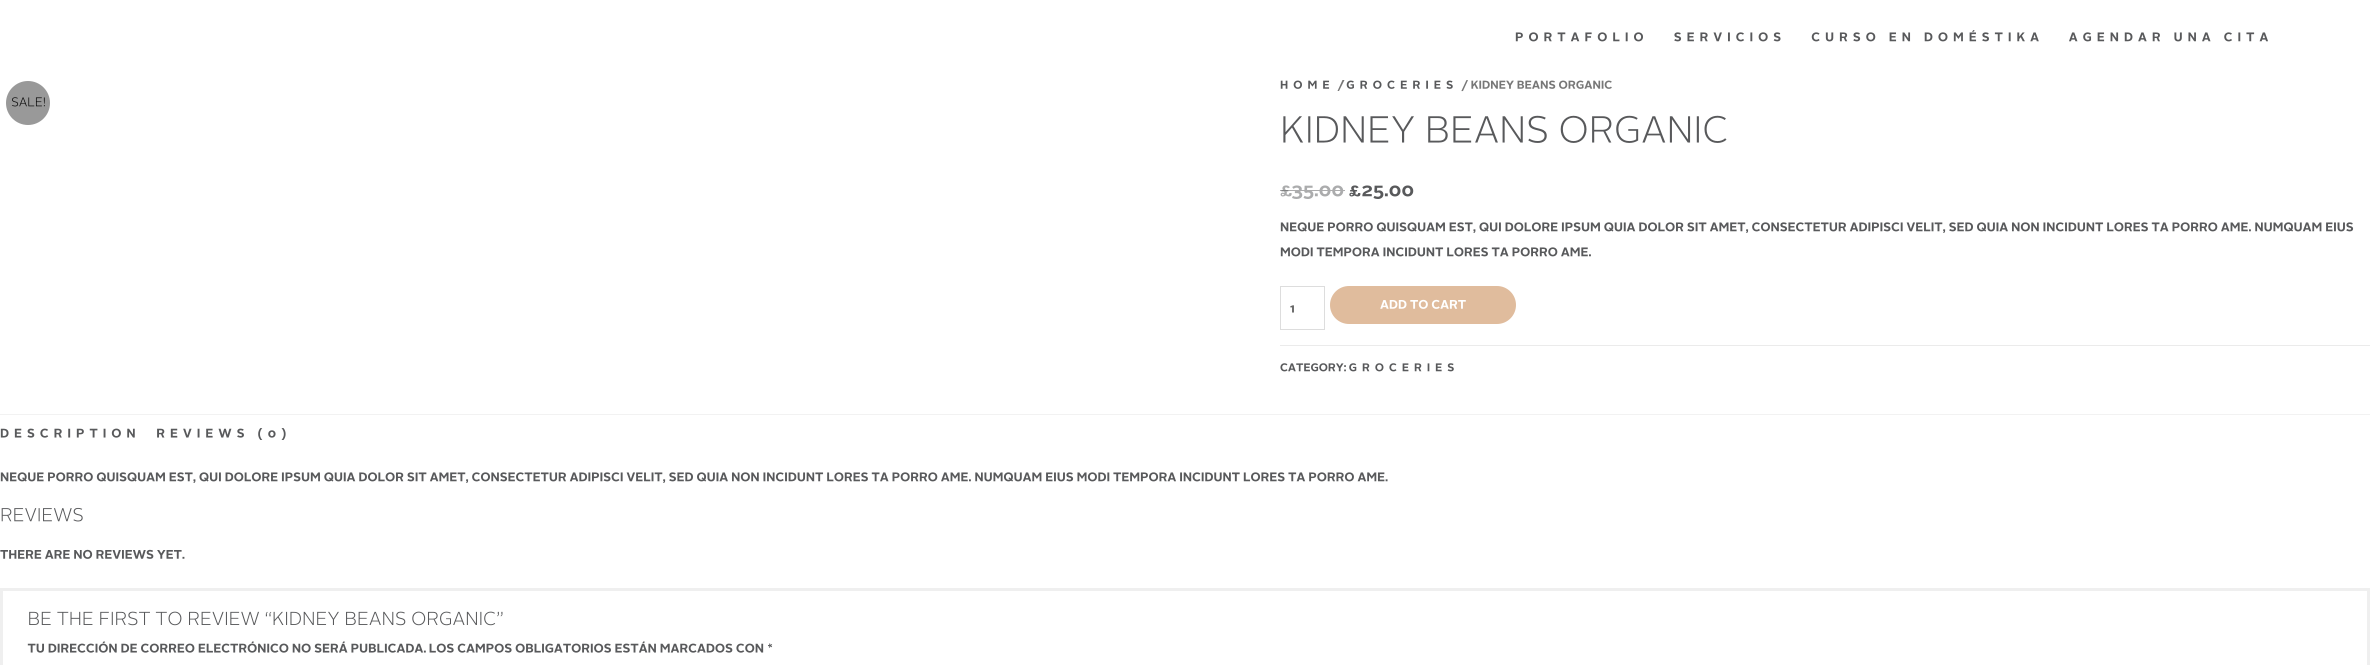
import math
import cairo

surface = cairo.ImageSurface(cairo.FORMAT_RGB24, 2370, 665)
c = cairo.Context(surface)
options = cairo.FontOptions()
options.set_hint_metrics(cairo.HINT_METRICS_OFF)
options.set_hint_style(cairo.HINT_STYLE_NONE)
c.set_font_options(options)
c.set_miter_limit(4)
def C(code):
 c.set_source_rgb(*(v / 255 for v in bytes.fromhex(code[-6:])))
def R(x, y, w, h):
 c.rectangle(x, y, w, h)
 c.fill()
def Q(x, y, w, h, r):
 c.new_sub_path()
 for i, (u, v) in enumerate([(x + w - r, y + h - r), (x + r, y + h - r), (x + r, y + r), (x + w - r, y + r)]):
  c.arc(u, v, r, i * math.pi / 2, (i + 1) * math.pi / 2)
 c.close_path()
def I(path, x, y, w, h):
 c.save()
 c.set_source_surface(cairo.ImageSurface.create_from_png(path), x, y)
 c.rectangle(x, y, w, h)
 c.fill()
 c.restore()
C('ffffff')
c.paint()
I('1.png',1515,32,128,10)
I('2.png',1674,32,107,10)
I('3.png',1811,30,228,12)
I('4.png',2069,32,199,10)
C('999999')
c.arc(28,103,22,0,2 * math.pi)
c.fill()
I('5.png',12,97,33,10)
I('6.png',1280,80,50,9)
C('777777')
c.new_path()
c.move_to(1337.5,91)
c.line_to(1342.5,80)
c.line_to(1344.5,80)
c.line_to(1339,91)
c.close_path()
c.fill()
I('7.png',1346,80,107,9)
I('8.png',1461,80,151,12)
I('9.png',1283,115,444,28)
I('10.png',1280,185,12,12)
I('11.png',1292,185,52,14)
c.set_source_rgba(0.345,0.349,0.357,0.5)
R(1280,190,11,1)
C('acacad')
R(1291,190,54,1)
I('12.png',1349,185,12,12)
I('13.png',1362,185,52,14)
I('14.png',1280,222,1074,11)
I('15.png',1280,247,311,10)
c.rectangle(1280.5,286.5,44,43)
C('dddddd')
c.set_line_width(1)
c.stroke()
I('16.png',1290,305,4,8)
C('e0bc9d')
Q(1330,286,186,38,19)
c.fill()
I('17.png',1380,299,86,10)
C('ebebeb')
R(1280,345,1090,1)
I('18.png',1280,363,66,9)
I('19.png',1349,363,105,9)
C('f2f2f2')
R(0,414,2370,1)
I('20.png',0,428,135,10)
I('21.png',157,428,129,12)
I('22.png',0,472,1388,11)
I('23.png',1,507,82,15)
I('24.png',0,549,185,10)
c.rectangle(1.5,589.5,2367,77)
C('efefef')
c.set_line_width(3)
c.stroke()
I('25.png',29,611,474,15)
I('26.png',27,641,399,12)
I('27.png',429,641,335,12)
I('28.png',768,643,5,5)
surface.write_to_png('o.png')
